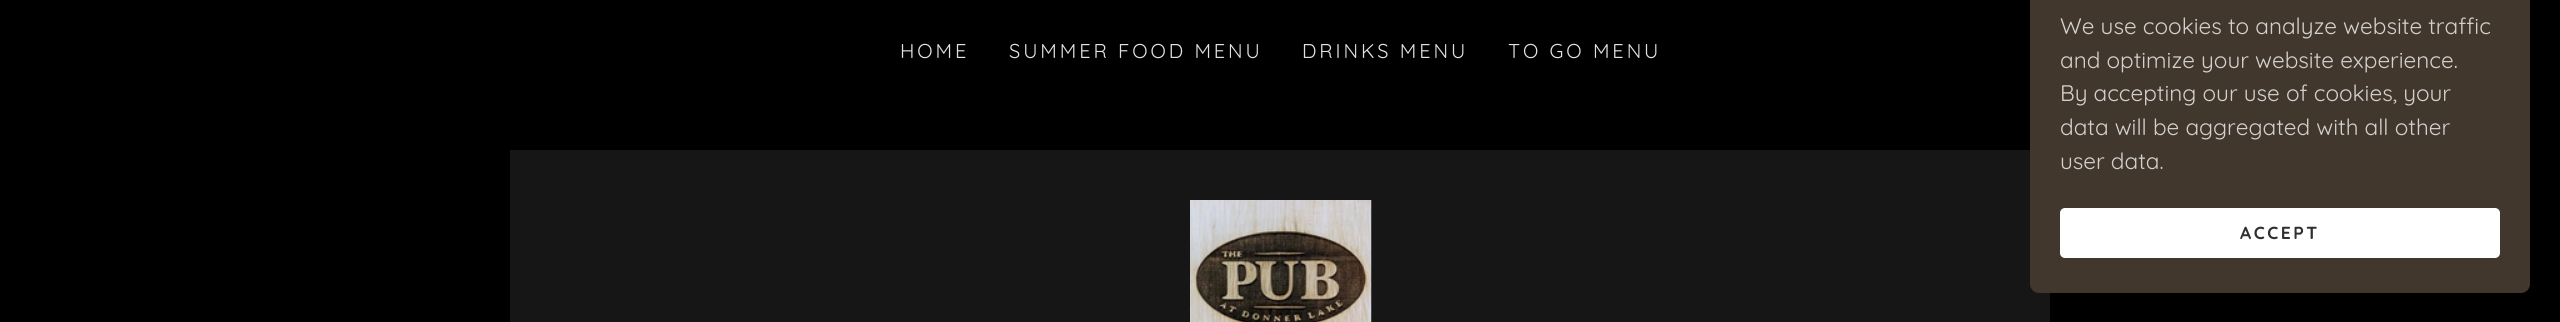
import math
import cairo

surface = cairo.ImageSurface(cairo.FORMAT_RGB24, 2560, 322)
c = cairo.Context(surface)
options = cairo.FontOptions()
options.set_hint_metrics(cairo.HINT_METRICS_OFF)
options.set_hint_style(cairo.HINT_STYLE_NONE)
c.set_font_options(options)
c.set_miter_limit(4)
def C(code):
 c.set_source_rgb(*(v / 255 for v in bytes.fromhex(code[-6:])))
def F(family, size, italic, bold):
 c.select_font_face(family, cairo.FONT_SLANT_ITALIC if italic else cairo.FONT_SLANT_NORMAL, cairo.FONT_WEIGHT_BOLD if bold else cairo.FONT_WEIGHT_NORMAL)
 c.set_font_size(size)
def T(x, y, s):
 c.move_to(x, y)
 c.show_text(s)
def L(x, y, s, letter, word):
 c.move_to(x, y)
 for ch in s:
  c.show_text(ch)
  c.rel_move_to(letter + word * (ch == ' '), 0)
def R(x, y, w, h):
 c.rectangle(x, y, w, h)
 c.fill()
def Q(x, y, w, h, r):
 c.new_sub_path()
 for i, (u, v) in enumerate([(x + w - r, y + h - r), (x + r, y + h - r), (x + r, y + r), (x + w - r, y + r)]):
  c.arc(u, v, r, i * math.pi / 2, (i + 1) * math.pi / 2)
 c.close_path()
def I(path, x, y, w, h):
 c.save()
 c.set_source_surface(cairo.ImageSurface.create_from_png(path), x, y)
 c.rectangle(x, y, w, h)
 c.fill()
 c.restore()
C('000000')
c.paint()
F('Quicksand',20,0,0)
C('e2e2e2')
L(900,58,'HOME',2.9,0)
L(1009,58,'SUMMER FOOD MENU',2.9,0)
L(1302,58,'DRINKS MENU',2.9,0)
L(1508,58,'TO GO MENU',2.9,0)
C('161616')
R(510,150,1540,172)
I('1.png',1190,200,182,122)
C('41372d')
Q(2030,-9,500,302,9)
c.fill()
F('Quicksand',22.5,0,0)
C('d4d0cd')
T(2060,34,'We use cookies to analyze website traffic')
T(2060,68,'and optimize your website experience.')
T(2060,101,'By accepting our use of cookies, your')
T(2060,135,'data will be aggregated with all other')
T(2060,169,'user data.')
C('ffffff')
Q(2060,208,440,50,5)
c.fill()
F('Quicksand',17.5,0,1)
C('303030')
L(2240,239,'ACCEPT',2.5,0)
surface.write_to_png('o.png')
